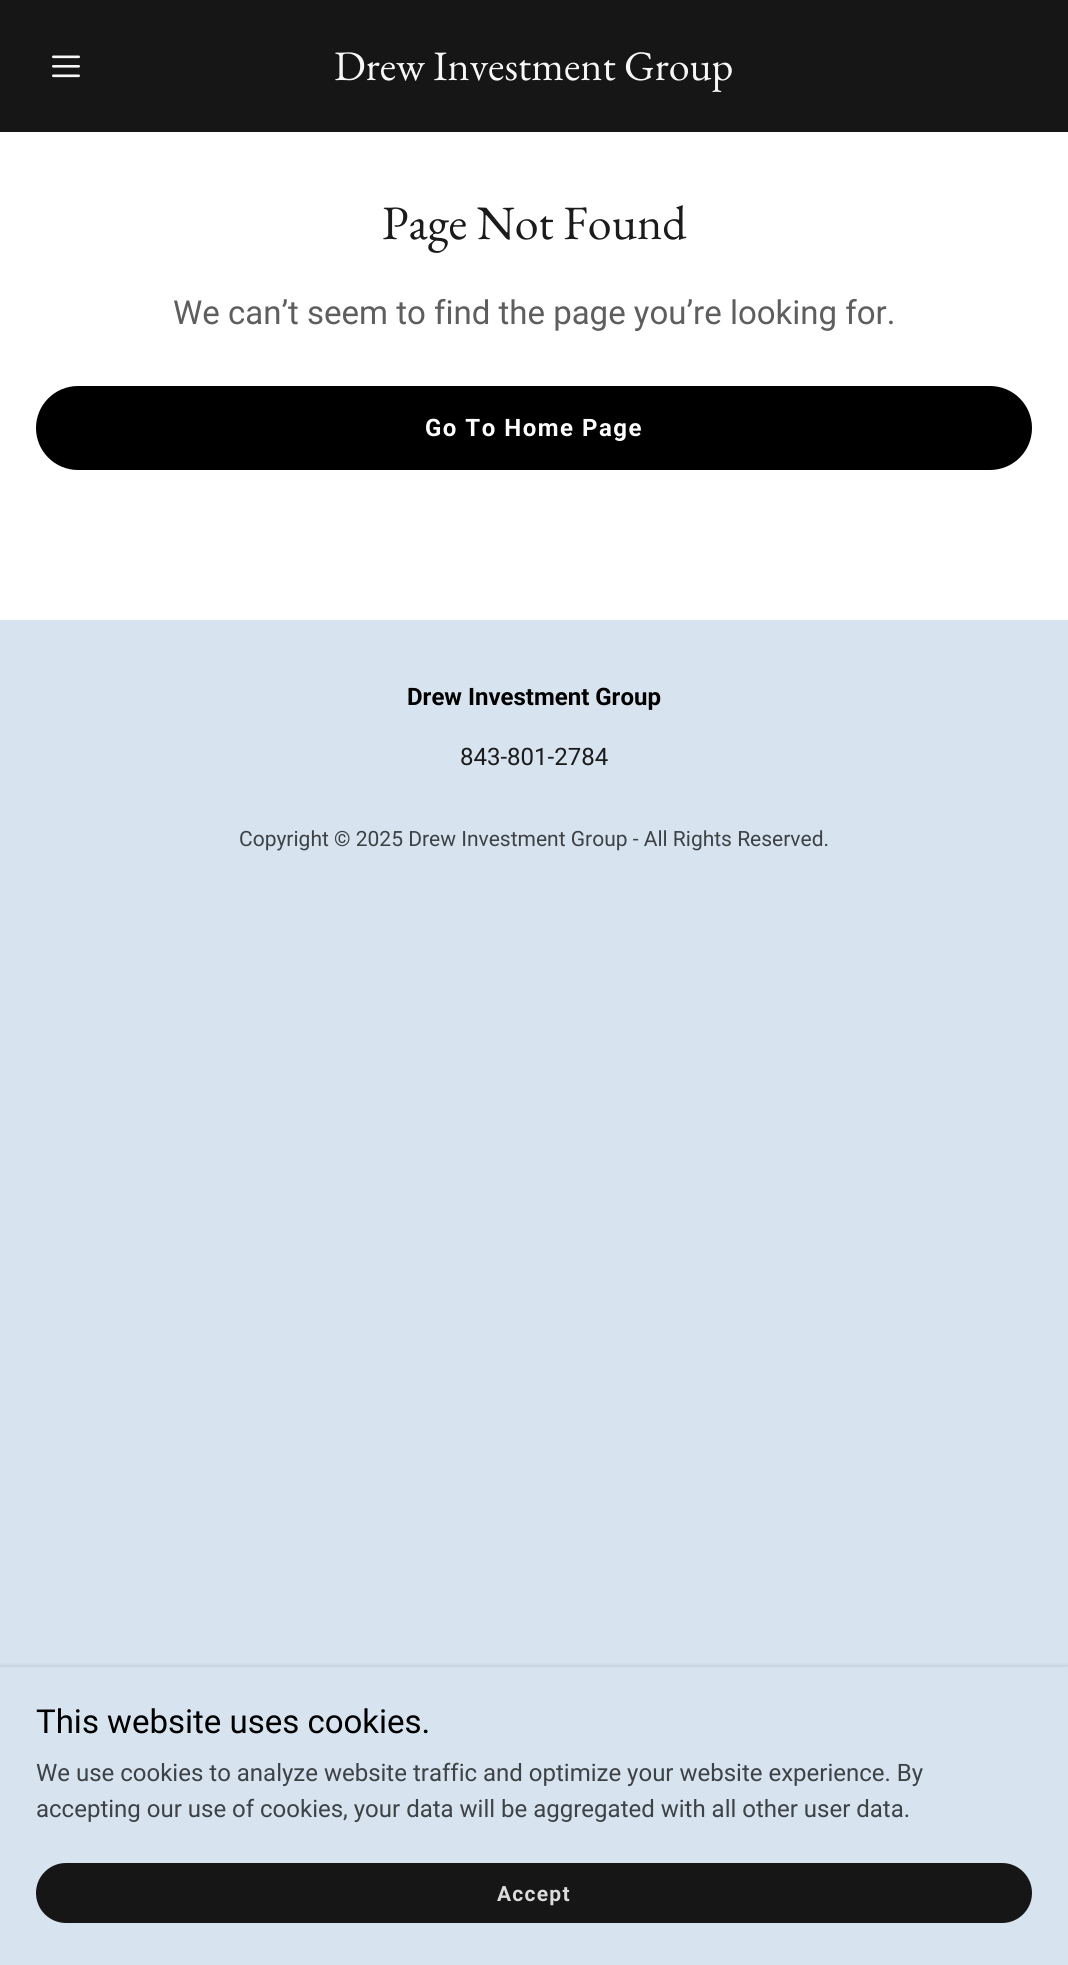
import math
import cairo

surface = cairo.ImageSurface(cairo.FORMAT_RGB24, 1068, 1965)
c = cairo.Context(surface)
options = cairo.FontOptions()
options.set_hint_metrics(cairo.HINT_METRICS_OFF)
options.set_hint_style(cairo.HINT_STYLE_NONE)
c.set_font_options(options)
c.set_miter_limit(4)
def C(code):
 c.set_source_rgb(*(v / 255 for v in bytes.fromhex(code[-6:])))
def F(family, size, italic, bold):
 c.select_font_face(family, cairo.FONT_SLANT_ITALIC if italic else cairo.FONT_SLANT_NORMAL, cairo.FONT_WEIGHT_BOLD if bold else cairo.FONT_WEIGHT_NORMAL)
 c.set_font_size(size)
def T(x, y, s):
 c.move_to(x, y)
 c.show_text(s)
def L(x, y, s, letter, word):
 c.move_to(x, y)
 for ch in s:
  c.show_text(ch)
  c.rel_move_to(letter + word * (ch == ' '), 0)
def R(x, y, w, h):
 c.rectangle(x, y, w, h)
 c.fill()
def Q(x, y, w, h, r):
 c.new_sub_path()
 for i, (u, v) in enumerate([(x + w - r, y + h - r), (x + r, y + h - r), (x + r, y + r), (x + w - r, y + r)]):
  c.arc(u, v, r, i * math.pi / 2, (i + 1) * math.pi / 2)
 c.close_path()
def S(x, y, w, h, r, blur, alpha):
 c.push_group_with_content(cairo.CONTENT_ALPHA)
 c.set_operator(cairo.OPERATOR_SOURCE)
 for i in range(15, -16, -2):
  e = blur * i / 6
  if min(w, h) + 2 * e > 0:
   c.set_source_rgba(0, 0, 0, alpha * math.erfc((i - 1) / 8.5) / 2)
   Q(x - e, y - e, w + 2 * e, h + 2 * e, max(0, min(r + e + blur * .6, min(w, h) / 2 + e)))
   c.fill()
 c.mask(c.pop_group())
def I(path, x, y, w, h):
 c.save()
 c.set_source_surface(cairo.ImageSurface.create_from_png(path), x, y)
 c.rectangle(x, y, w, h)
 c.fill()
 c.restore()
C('d7e3ee')
c.paint()
C('161616')
R(0,0,1068,132)
I('1.png',52,55,28,23)
F('EB Garamond',42,0,0)
C('f7f7f7')
T(334,80,'Drew Investment Group')
C('ffffff')
R(0,132,1068,488)
F('EB Garamond',48,0,0)
C('1b1b1b')
T(382,239,'Page Not Found')
F('Roboto',33,0,0)
C('5e5e5e')
T(173,324,'We can’t seem to find the page you’re looking for.')
C('000000')
Q(36,386,996,84,42)
c.fill()
F('Roboto',24,0,1)
C('ffffff')
L(425,436,'Go To Home Page',1.5,0)
C('000000')
T(407,705,'Drew Investment Group')
F('Roboto',24,0,0)
C('1b1b1b')
T(460,765,'843-801-2784')
F('Roboto',21,0,0)
C('3d4246')
T(239,846,'Copyright © 2025 Drew Investment Group - All Rights Reserved.')
c.save()
c.rectangle(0,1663,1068,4)
c.clip()
C('000000')
S(0,1670,1068,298,0,4.5,.3)
c.restore()
F('Roboto',33,0,0)
C('000000')
T(36,1733,'This website uses cookies.')
F('Roboto',24,0,0)
C('3d4246')
T(36,1781,'We use cookies to analyze website traffic and optimize your website experience. By')
T(36,1817,'accepting our use of cookies, your data will be aggregated with all other user data.')
C('161616')
Q(36,1863,996,60,30)
c.fill()
F('Roboto',21,0,1)
C('dbdbdb')
L(497,1901,'Accept',1.25,0)
surface.write_to_png('o.png')
